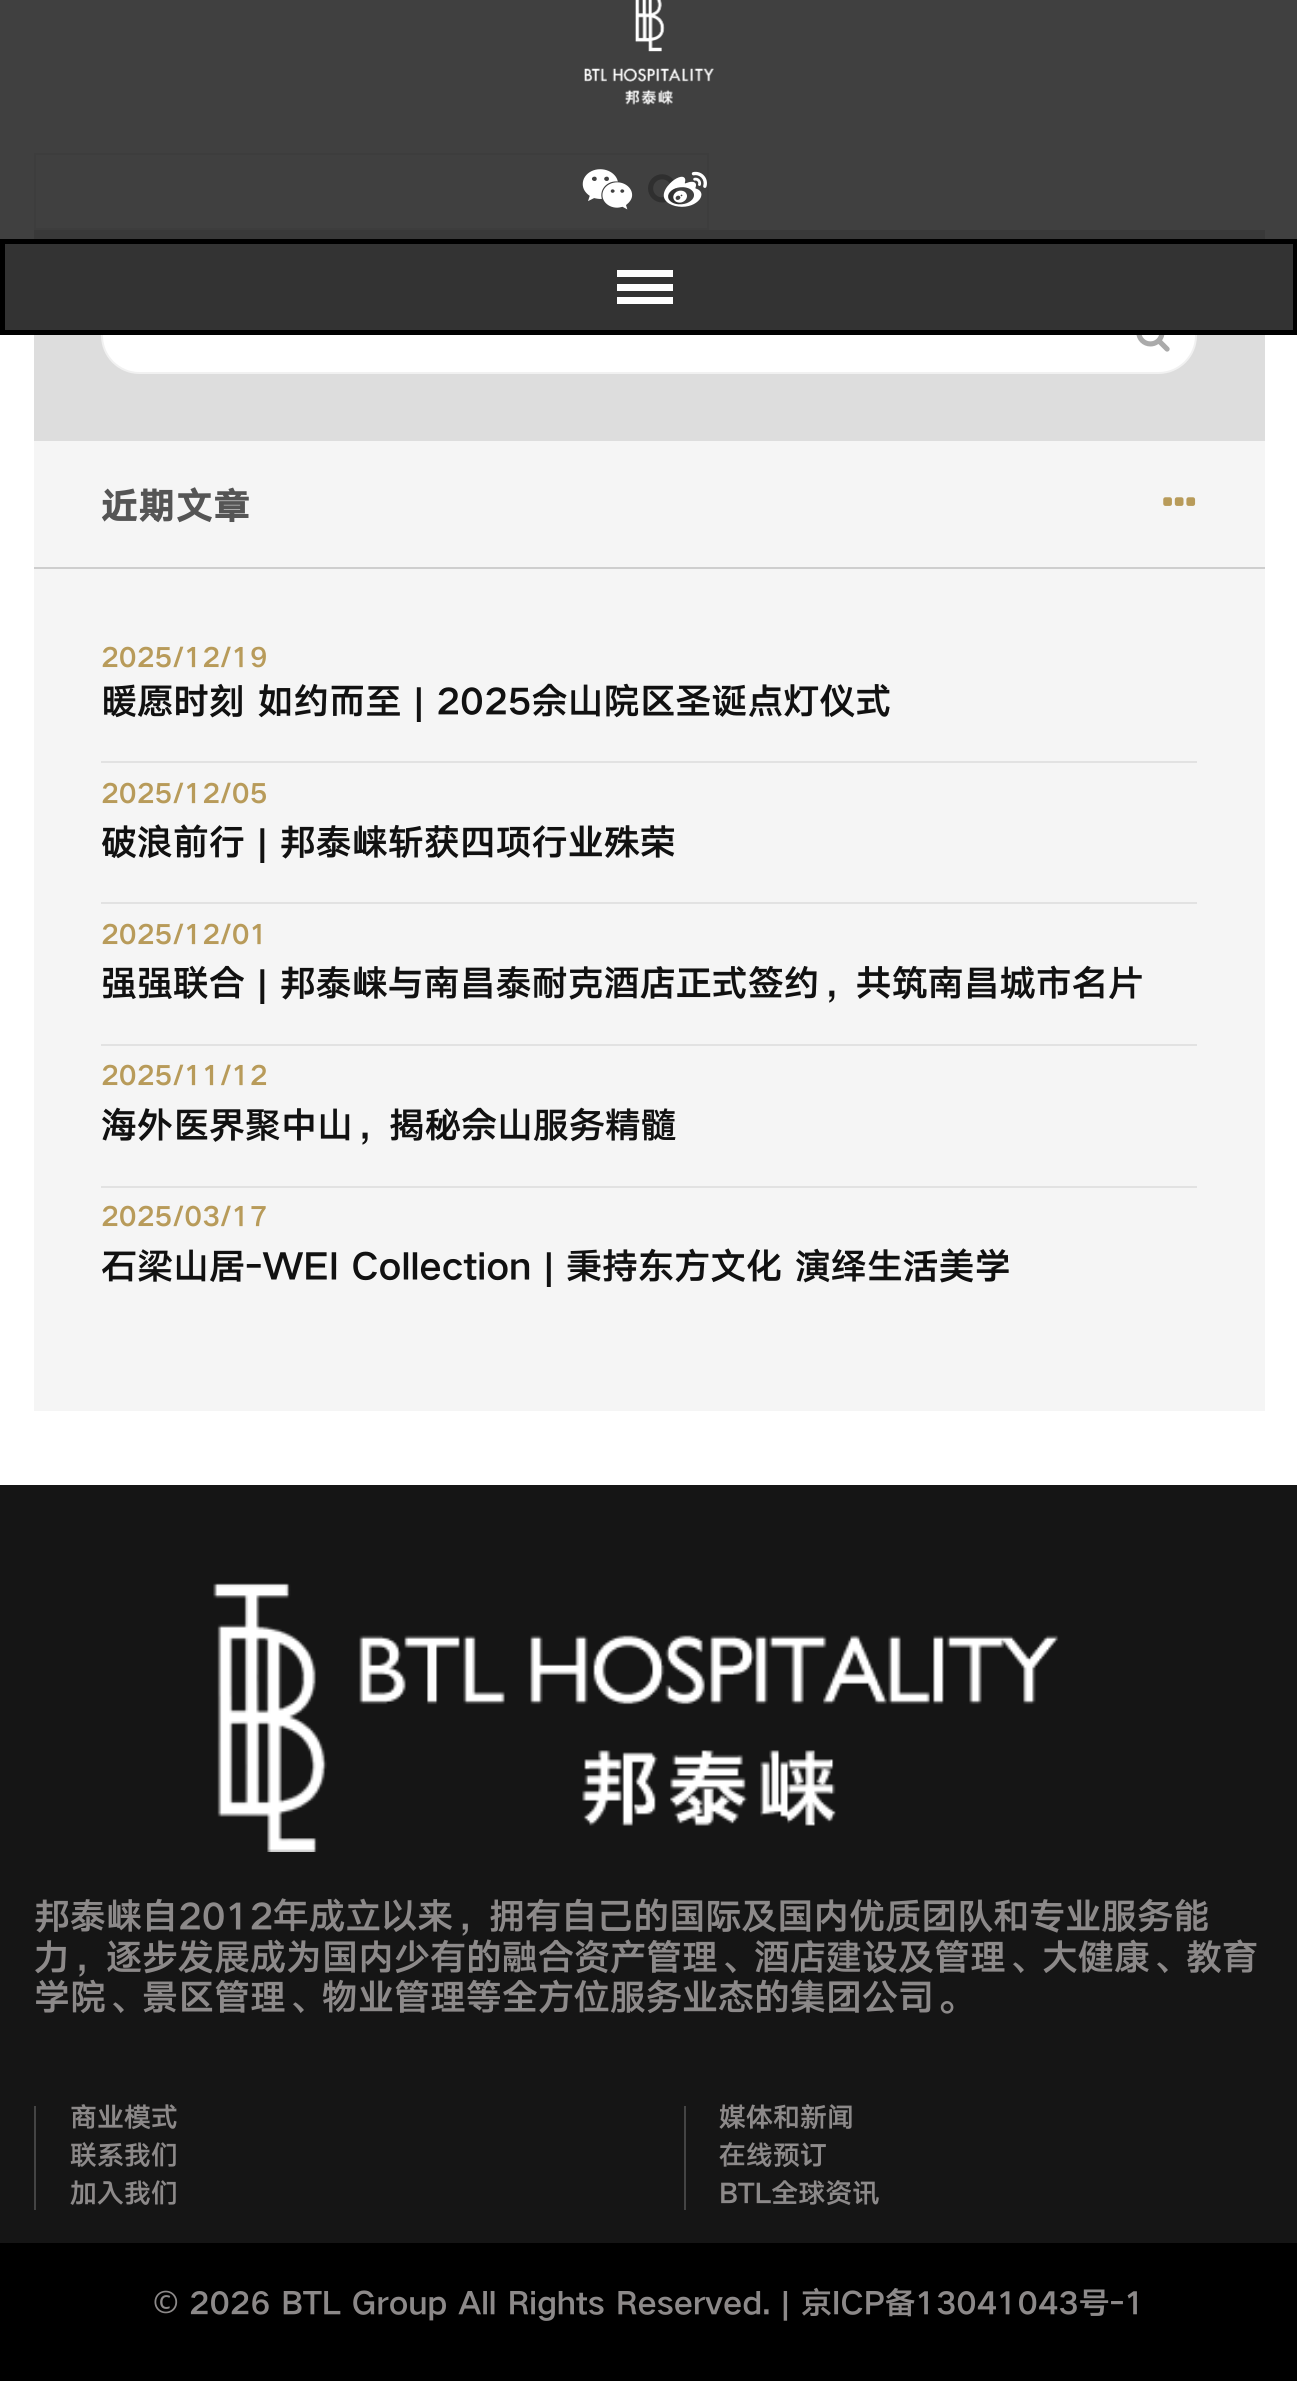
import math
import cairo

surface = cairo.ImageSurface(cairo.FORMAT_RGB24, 1297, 2381)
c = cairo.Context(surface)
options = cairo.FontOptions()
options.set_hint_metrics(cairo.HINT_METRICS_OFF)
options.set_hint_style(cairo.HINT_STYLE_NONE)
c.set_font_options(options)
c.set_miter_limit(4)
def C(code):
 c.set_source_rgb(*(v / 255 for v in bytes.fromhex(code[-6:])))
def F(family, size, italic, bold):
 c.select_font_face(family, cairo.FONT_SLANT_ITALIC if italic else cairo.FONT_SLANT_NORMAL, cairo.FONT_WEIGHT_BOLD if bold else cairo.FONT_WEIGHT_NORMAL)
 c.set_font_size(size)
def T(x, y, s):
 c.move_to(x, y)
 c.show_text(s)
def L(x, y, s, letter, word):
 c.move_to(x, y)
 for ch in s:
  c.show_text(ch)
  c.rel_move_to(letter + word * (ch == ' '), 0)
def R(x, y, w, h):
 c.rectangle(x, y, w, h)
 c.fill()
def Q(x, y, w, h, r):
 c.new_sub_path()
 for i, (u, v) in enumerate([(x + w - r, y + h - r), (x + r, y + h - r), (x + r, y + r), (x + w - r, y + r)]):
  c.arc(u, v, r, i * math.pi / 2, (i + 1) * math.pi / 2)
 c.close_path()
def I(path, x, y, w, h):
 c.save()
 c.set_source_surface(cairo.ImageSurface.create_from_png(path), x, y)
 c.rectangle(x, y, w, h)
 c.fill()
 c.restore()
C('ffffff')
c.paint()
c.rectangle(35,154,673,75)
C('f1f1f1')
c.stroke()
I('4.png',648,174,34,34)
C('dddddd')
R(34,230,1231,211)
c.set_source_rgba(0.067,0.067,0.067,0.8)
R(0,0,1297,239)
I('1.png',584,0,130,105)
I('2.png',582,169,51,41)
I('3.png',663,171,44,36)
C('ffffff')
Q(102,298,1094,75,37.5)
c.fill_preserve()
C('f1f1f1')
c.stroke()
C('333333')
c.rectangle(2.5,241.5,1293,91)
c.fill_preserve()
C('000000')
c.set_line_width(5)
c.stroke()
C('ffffff')
R(617,284,56,7)
R(617,270,56,7)
R(617,297,56,7)
I('5.png',1136,335,34,17)
C('f5f5f5')
R(34,441,1231,970)
C('cecece')
R(34,567,1231,2)
F('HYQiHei',36,0,1)
C('555555')
L(101,518,'近期文章',1.5,0)
I('6.png',1163,497,33,9)
F('HYQiHei',27,0,0)
C('b89b5a')
T(101,666,'2025/12/19')
F('HYQiHei',36,0,0)
C('111111')
T(101,713,'暖愿时刻 如约而至 | 2025佘山院区圣诞点灯仪式')
C('e2e2e2')
R(101,761,1096,2)
F('HYQiHei',27,0,0)
C('b89b5a')
T(101,802,'2025/12/05')
F('HYQiHei',36,0,0)
C('111111')
T(101,854,'破浪前行 | 邦泰崃斩获四项行业殊荣')
C('e2e2e2')
R(101,902,1096,2)
F('HYQiHei',27,0,0)
C('b89b5a')
T(101,943,'2025/12/01')
F('HYQiHei',36,0,0)
C('111111')
T(101,995,'强强联合 | 邦泰崃与南昌泰耐克酒店正式签约，共筑南昌城市名片')
C('e2e2e2')
R(101,1044,1096,2)
F('HYQiHei',27,0,0)
C('b89b5a')
T(101,1084,'2025/11/12')
F('HYQiHei',36,0,0)
C('111111')
T(101,1137,'海外医界聚中山，揭秘佘山服务精髓')
C('e2e2e2')
R(101,1186,1096,2)
F('HYQiHei',27,0,0)
C('b89b5a')
T(101,1225,'2025/03/17')
F('HYQiHei',36,0,0)
C('111111')
T(101,1278,'石梁山居-WEI Collection | 秉持东方文化 演绎生活美学')
C('151515')
R(0,1485,1297,758)
I('7.png',213,1583,846,269)
C('8c8989')
T(34,1928,'邦泰崃自2012年成立以来，拥有自己的国际及国内优质团队和专业服务能')
T(34,1969,'力，逐步发展成为国内少有的融合资产管理、酒店建设及管理、大健康、教育')
T(34,2009,'学院、景区管理、物业管理等全方位服务业态的集团公司。')
C('444444')
R(34,2106,2,104)
F('HYQiHei',27,0,0)
C('8c8989')
T(70,2126,'商业模式')
T(70,2164,'联系我们')
T(70,2202,'加入我们')
C('444444')
R(684,2106,2,104)
C('8c8989')
T(719,2126,'媒体和新闻')
T(719,2164,'在线预订')
T(719,2202,'BTL全球资讯')
C('000000')
R(0,2243,1297,138)
F('Open Sans Medium',30.8,0,0)
C('8c8989')
T(153,2313,'©')
F('HYQiHei',30.8,0,0)
T(189,2313,'2026 BTL Group All Rights Reserved. |')
T(801,2313,'京ICP备13041043号-1')
surface.write_to_png('o.png')
